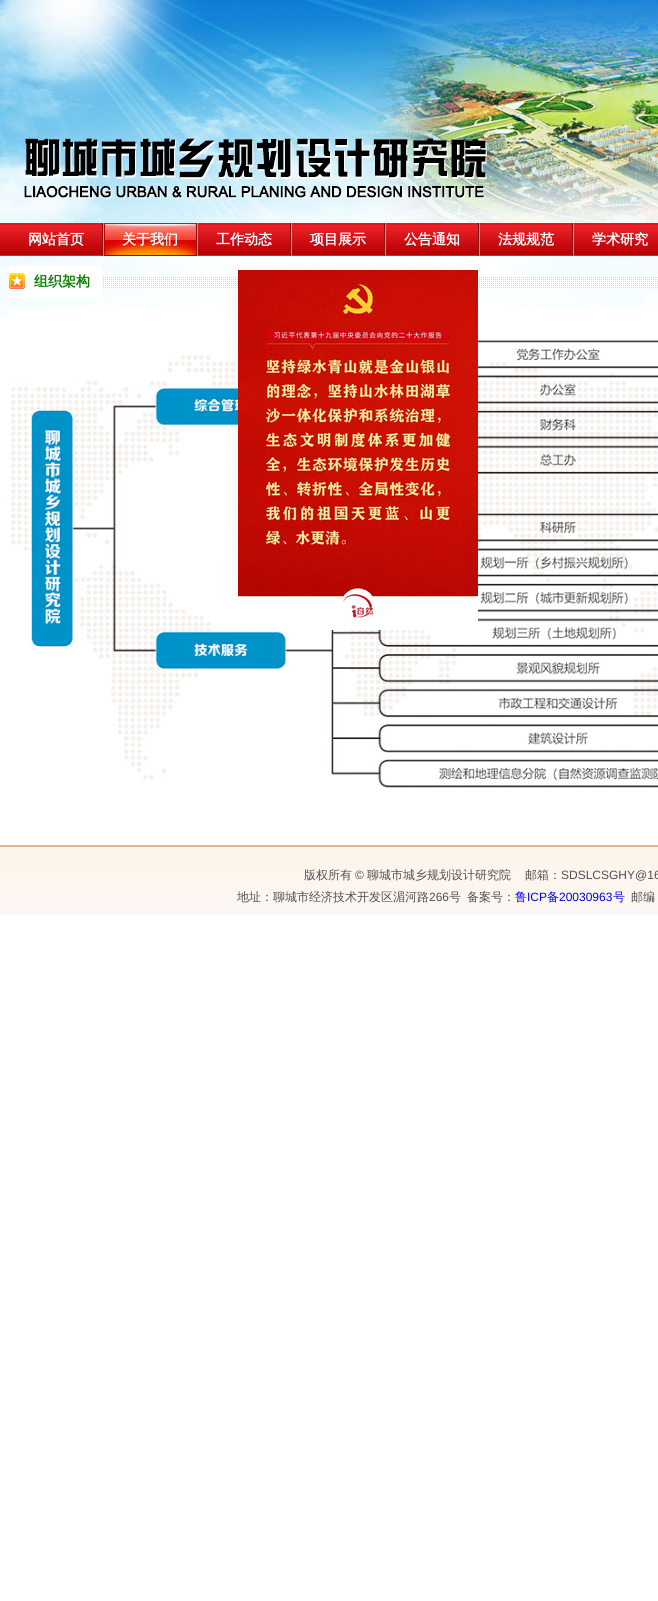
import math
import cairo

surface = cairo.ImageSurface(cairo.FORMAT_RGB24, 658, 1601)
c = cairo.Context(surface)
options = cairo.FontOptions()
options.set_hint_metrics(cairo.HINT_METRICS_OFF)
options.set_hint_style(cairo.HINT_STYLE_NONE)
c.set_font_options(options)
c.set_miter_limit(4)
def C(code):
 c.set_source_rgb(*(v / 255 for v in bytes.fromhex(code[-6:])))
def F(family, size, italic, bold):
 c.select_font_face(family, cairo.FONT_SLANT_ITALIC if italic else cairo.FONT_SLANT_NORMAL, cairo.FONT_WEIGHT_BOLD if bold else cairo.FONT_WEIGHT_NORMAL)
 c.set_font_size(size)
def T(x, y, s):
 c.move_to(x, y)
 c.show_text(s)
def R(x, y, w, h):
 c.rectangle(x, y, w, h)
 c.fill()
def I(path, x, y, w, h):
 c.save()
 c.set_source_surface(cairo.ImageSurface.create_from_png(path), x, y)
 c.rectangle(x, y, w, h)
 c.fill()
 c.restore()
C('ffffff')
c.paint()
I('1.png',0,256,658,64)
I('2.png',0,0,658,223)
I('3.png',0,223,658,33)
F('WenQuanYi Zen Hei',14,0,1)
C('ffffff')
T(28,244,'网站首页')
I('4.png',102,223,2,33)
I('5.png',104,223,92,33)
I('6.png',105,224,91,31)
T(122,244,'关于我们')
I('4.png',196,223,2,33)
T(216,244,'工作动态')
I('4.png',290,223,2,33)
T(310,244,'项目展示')
I('4.png',384,223,2,33)
T(404,244,'公告通知')
I('4.png',478,223,2,33)
T(498,244,'法规规范')
I('4.png',572,223,2,33)
T(592,244,'学术研究')
I('7.png',102,277,556,11)
R(9,266,93,32)
I('8.png',9,273,16,16)
C('0d7f05')
T(34,286,'组织架构')
I('9.png',9,308,649,480)
I('10.png',238,270,240,360)
I('11.png',0,845,658,63)
F('WenQuanYi Zen Hei Medium',12,0,0)
C('505050')
T(304,879,'版权所有')
F('Liberation Sans',12,0,0)
T(355,879,'©')
F('WenQuanYi Zen Hei Medium',12,0,0)
T(367,879,'聊城市城乡规划设计研究院')
T(525,879,'邮箱：')
F('Liberation Sans',12,0,0)
T(561,879,'SDSLCSGHY@16')
F('WenQuanYi Zen Hei Medium',12,0,0)
T(237,901,'地址：聊城市经济技术开发区湄河路')
F('Liberation Sans',12,0,0)
T(429,901,'266')
F('WenQuanYi Zen Hei Medium',12,0,0)
T(449,901,'号')
T(467,901,'备案号：')
C('0000ee')
T(515,901,'鲁')
F('Liberation Sans',12,0,0)
T(527,901,'ICP')
F('WenQuanYi Zen Hei Medium',12,0,0)
T(547,901,'备')
F('Liberation Sans',12,0,0)
T(559,901,'20030963')
F('WenQuanYi Zen Hei Medium',12,0,0)
T(613,901,'号')
C('505050')
T(631,901,'邮编')
C('f7f7f7')
R(0,908,658,6)
surface.write_to_png('o.png')
